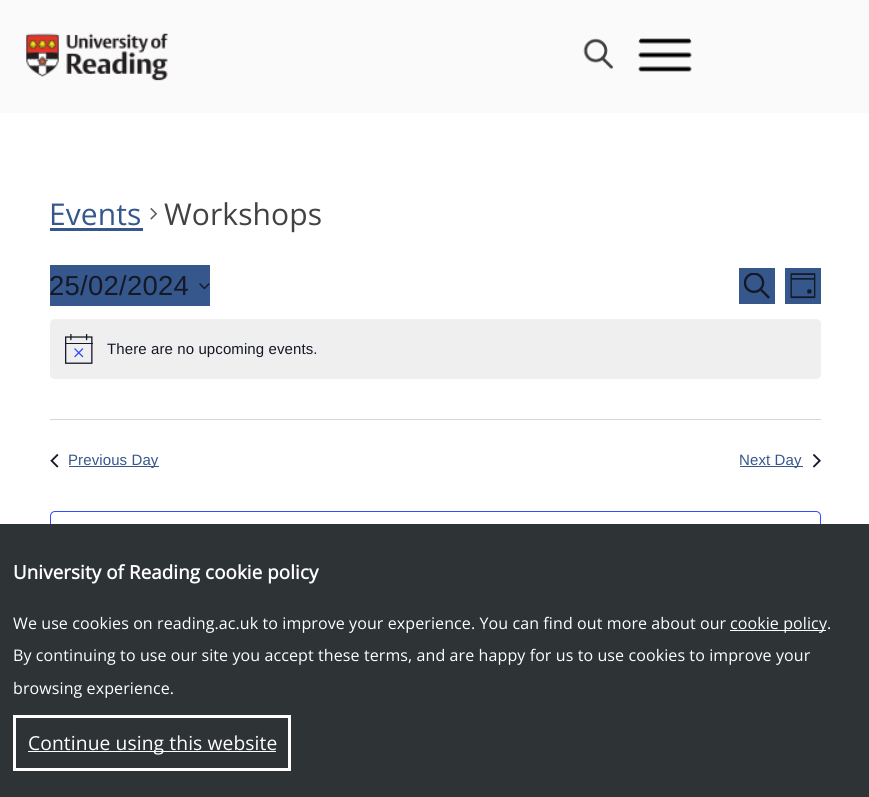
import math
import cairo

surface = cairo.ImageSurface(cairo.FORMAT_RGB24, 869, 797)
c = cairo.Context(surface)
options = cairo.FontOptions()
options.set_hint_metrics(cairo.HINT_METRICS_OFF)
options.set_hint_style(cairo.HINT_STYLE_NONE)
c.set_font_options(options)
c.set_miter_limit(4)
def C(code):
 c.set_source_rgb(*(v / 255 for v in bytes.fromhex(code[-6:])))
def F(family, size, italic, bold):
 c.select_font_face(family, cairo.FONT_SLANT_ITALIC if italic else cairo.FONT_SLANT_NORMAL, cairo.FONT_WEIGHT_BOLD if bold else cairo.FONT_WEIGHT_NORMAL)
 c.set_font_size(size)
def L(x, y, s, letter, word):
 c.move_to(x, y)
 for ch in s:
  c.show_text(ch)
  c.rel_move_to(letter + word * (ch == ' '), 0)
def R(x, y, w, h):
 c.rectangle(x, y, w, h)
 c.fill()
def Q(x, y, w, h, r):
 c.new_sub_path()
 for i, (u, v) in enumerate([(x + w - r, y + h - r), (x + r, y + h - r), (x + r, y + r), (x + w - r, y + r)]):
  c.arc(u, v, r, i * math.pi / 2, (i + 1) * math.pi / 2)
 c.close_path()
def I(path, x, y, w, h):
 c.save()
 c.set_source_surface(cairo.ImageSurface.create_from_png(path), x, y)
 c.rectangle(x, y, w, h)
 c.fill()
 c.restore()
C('ffffff')
c.paint()
C('fbfafa')
R(0,0,869,113)
I('1.png',26,33,142,48)
I('2.png',583,38,30,31)
I('3.png',638,38,54,34)
F('Open Sans',30,0,0)
C('36578c')
L(49,225,'Events',.1,0)
R(50,228,93,3)
I('4.png',150,207,8,13)
C('434241')
L(164,225,'Workshops',.1,0)
C('36578c')
R(50,265,160,41)
F('Liberation Sans',27.5,0,0)
C('141827')
L(49,295,'25/02/2024',.25,0)
I('5.png',199,283,11,7)
C('36578c')
R(739,268,36,36)
I('6.png',744,273,26,26)
R(785,268,36,36)
I('7.png',790,273,26,26)
C('efeff0')
Q(50,319,771,60,5)
c.fill()
I('8.png',65,334,28,30)
F('Liberation Sans',15,0,0)
C('141827')
L(107,354,'There are no upcoming events.',.1,0)
C('d5d5d5')
R(50,419,771,1)
I('9.png',50,454,9,14)
C('36578c')
R(69,466,90,1)
L(68,465,'Previous Day',.1,0)
R(740,466,63,1)
L(739,465,'Next Day',.1,0)
I('10.png',813,454,8,14)
Q(50.5,511.5,770,57,4.5)
C('334aff')
c.set_line_width(1)
c.stroke()
C('2e3336')
R(0,524,869,273)
F('Open Sans',18.75,0,1)
C('ffffff')
L(13,579,'University of Reading cookie policy',.1,0)
F('Open Sans',16,0,0)
L(13,629,'We use cookies on reading.ac.uk to improve your experience. You can find out more about our',.1,0)
R(730,630,96,1)
L(730,629,'cookie policy.',.1,0)
L(13,661,'By continuing to use our site you accept these terms, and are happy for us to use cookies to improve your',.1,0)
L(13,694,'browsing experience.',.1,0)
c.rectangle(14.5,716.5,275,53)
c.set_line_width(3)
c.stroke()
R(28,751,248,1)
F('Open Sans',19.25,0,0)
L(28,750,'Continue using this website',.1,0)
surface.write_to_png('o.png')
